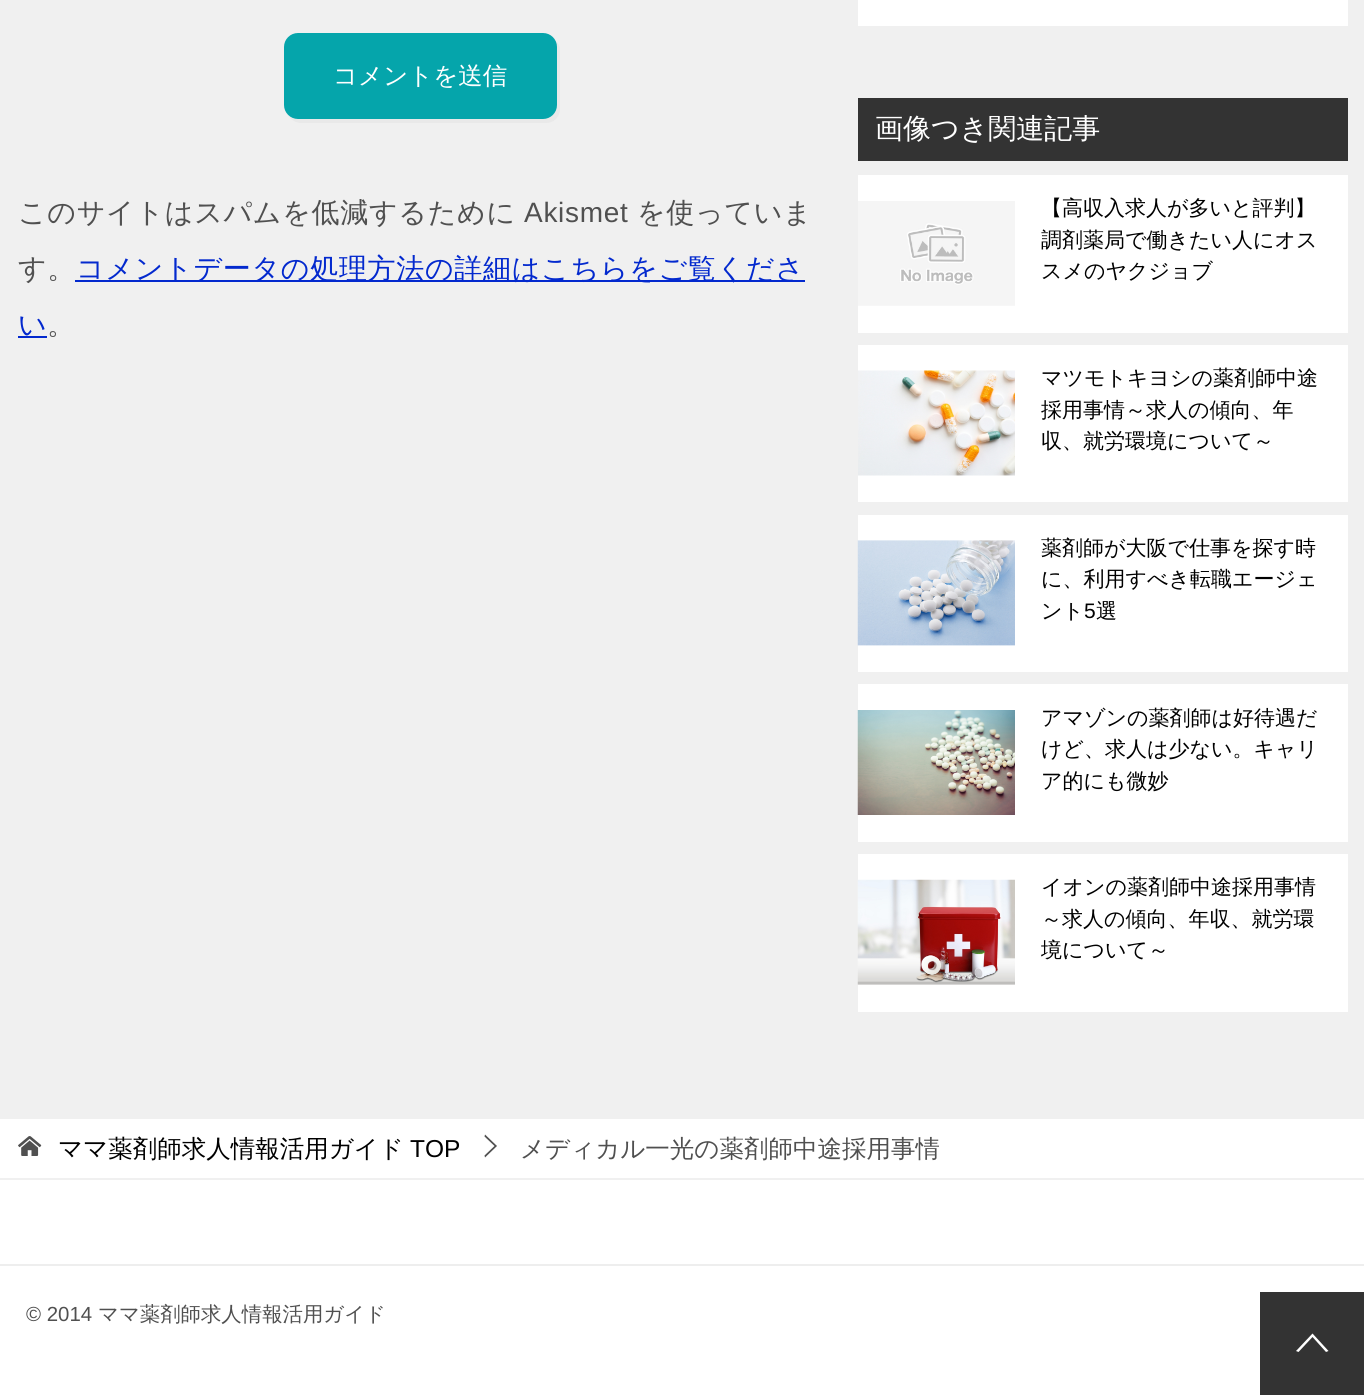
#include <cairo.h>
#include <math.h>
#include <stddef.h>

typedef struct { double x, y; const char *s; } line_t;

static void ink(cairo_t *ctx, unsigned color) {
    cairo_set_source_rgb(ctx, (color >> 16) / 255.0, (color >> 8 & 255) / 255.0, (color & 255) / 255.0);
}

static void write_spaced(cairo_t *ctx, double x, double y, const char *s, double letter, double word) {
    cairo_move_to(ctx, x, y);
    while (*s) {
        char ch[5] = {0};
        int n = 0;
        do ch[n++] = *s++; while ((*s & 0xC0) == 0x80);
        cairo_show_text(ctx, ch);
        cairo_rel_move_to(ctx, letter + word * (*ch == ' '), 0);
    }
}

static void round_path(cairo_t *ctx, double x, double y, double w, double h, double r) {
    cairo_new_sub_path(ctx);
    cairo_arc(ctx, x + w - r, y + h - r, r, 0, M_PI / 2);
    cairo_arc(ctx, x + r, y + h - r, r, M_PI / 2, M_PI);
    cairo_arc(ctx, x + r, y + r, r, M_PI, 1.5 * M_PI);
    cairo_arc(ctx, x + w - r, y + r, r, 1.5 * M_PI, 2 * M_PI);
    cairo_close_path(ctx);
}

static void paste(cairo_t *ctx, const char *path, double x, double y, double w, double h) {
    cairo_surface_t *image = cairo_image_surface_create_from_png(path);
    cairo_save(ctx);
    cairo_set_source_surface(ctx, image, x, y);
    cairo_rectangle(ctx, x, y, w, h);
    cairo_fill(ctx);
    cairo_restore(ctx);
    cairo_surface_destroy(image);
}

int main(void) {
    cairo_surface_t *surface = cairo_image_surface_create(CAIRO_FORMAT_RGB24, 1364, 1395);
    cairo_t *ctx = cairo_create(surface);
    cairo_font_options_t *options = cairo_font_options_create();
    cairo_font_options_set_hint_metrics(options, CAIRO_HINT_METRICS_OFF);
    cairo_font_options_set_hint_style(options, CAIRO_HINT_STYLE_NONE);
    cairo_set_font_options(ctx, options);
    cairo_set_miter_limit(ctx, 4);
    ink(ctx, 0xF0F0F0);
    cairo_paint(ctx);
    ink(ctx, 0xE9E9E9);
    cairo_new_path(ctx);
    cairo_move_to(ctx, 289, 116);
    cairo_curve_to(ctx, 291, 120, 296, 123, 301, 123);
    cairo_line_to(ctx, 546, 123);
    cairo_curve_to(ctx, 554, 123, 560, 117, 560, 109);
    cairo_line_to(ctx, 560, 51);
    cairo_curve_to(ctx, 560, 46, 558, 42, 554, 40);
    cairo_curve_to(ctx, 556, 42, 556, 44, 556, 47);
    cairo_line_to(ctx, 556, 105);
    cairo_curve_to(ctx, 556, 113, 550, 119, 542, 119);
    cairo_line_to(ctx, 298, 119);
    cairo_curve_to(ctx, 294, 119, 291, 118, 289, 116);
    cairo_close_path(ctx);
    cairo_fill(ctx);
    ink(ctx, 0x05A5AB);
    round_path(ctx, 284, 33, 273, 86, 14);
    cairo_fill(ctx);
    cairo_select_font_face(ctx, "WenQuanYi Zen Hei Medium", CAIRO_FONT_SLANT_NORMAL, CAIRO_FONT_WEIGHT_NORMAL);
    cairo_set_font_size(ctx, 24.5);
    ink(ctx, 0xFFFFFF);
    cairo_move_to(ctx, 333, 84);
    cairo_show_text(ctx, "コメントを送信");
    cairo_set_font_size(ctx, 28);
    ink(ctx, 0x505050);
    write_spaced(ctx, 18, 222, "このサイトはスパムを低減するために", 0.7, 0);
    cairo_select_font_face(ctx, "Liberation Sans", CAIRO_FONT_SLANT_NORMAL, CAIRO_FONT_WEIGHT_NORMAL);
    write_spaced(ctx, 524, 222, "Akismet", 0.7, 0);
    cairo_select_font_face(ctx, "WenQuanYi Zen Hei Medium", CAIRO_FONT_SLANT_NORMAL, CAIRO_FONT_WEIGHT_NORMAL);
    write_spaced(ctx, 637, 222, "を使っていま", 0.7, 0);
    write_spaced(ctx, 18, 278, "す。", 0.7, 0);
    ink(ctx, 0x0329CE);
    cairo_rectangle(ctx, 75, 280, 730, 2);
    cairo_fill(ctx);
    write_spaced(ctx, 76, 278, "コメントデータの処理方法の詳細はこちらをご覧くださ", 0.7, 0);
    write_spaced(ctx, 18, 334, "い", 0.7, 0);
    cairo_rectangle(ctx, 18, 336, 29, 2);
    cairo_fill(ctx);
    ink(ctx, 0x505050);
    write_spaced(ctx, 47, 334, "。", 0.7, 0);
    ink(ctx, 0xFFFFFF);
    cairo_rectangle(ctx, 858, 0, 490, 26);
    cairo_fill(ctx);
    ink(ctx, 0x333333);
    cairo_rectangle(ctx, 858, 98, 490, 63);
    cairo_fill(ctx);
    ink(ctx, 0xFFFFFF);
    cairo_move_to(ctx, 875, 138);
    cairo_show_text(ctx, "画像つき関連記事");
    cairo_rectangle(ctx, 858, 175, 490, 158);
    cairo_fill(ctx);
    paste(ctx, "media/1.png", 858, 201, 157, 105);
    cairo_set_font_size(ctx, 21);
    ink(ctx, 0x000000);
    {
        static const line_t items[] = {
            {1041, 215, "【高収入求人が多いと評判】"},
            {1041, 247, "調剤薬局で働きたい人にオス"},
            {1041, 278, "スメのヤクジョブ"},
        };
        for (size_t i = 0; i < sizeof items / sizeof *items; i++) {
            cairo_move_to(ctx, items[i].x, items[i].y);
            cairo_show_text(ctx, items[i].s);
        }
    }
    ink(ctx, 0xFFFFFF);
    cairo_rectangle(ctx, 858, 345, 490, 157);
    cairo_fill(ctx);
    paste(ctx, "media/2.png", 858, 370, 157, 106);
    ink(ctx, 0x000000);
    {
        static const line_t items[] = {
            {1041, 385, "マツモトキヨシの薬剤師中途"},
            {1041, 417, "採用事情～求人の傾向、年"},
            {1041, 448, "収、就労環境について～"},
        };
        for (size_t i = 0; i < sizeof items / sizeof *items; i++) {
            cairo_move_to(ctx, items[i].x, items[i].y);
            cairo_show_text(ctx, items[i].s);
        }
    }
    ink(ctx, 0xFFFFFF);
    cairo_rectangle(ctx, 858, 515, 490, 157);
    cairo_fill(ctx);
    paste(ctx, "media/3.png", 857, 540, 158, 106);
    ink(ctx, 0x000000);
    {
        static const line_t items[] = {
            {1041, 555, "薬剤師が大阪で仕事を探す時"},
            {1041, 586, "に、利用すべき転職エージェ"},
            {1041, 618, "ント"},
        };
        for (size_t i = 0; i < sizeof items / sizeof *items; i++) {
            cairo_move_to(ctx, items[i].x, items[i].y);
            cairo_show_text(ctx, items[i].s);
        }
    }
    cairo_select_font_face(ctx, "Liberation Sans", CAIRO_FONT_SLANT_NORMAL, CAIRO_FONT_WEIGHT_NORMAL);
    cairo_move_to(ctx, 1084, 618);
    cairo_show_text(ctx, "5");
    cairo_select_font_face(ctx, "WenQuanYi Zen Hei Medium", CAIRO_FONT_SLANT_NORMAL, CAIRO_FONT_WEIGHT_NORMAL);
    cairo_move_to(ctx, 1096, 618);
    cairo_show_text(ctx, "選");
    ink(ctx, 0xFFFFFF);
    cairo_rectangle(ctx, 858, 684, 490, 158);
    cairo_fill(ctx);
    paste(ctx, "media/4.png", 857, 710, 158, 105);
    ink(ctx, 0x000000);
    {
        static const line_t items[] = {
            {1041, 725, "アマゾンの薬剤師は好待遇だ"},
            {1041, 756, "けど、求人は少ない。キャリ"},
            {1041, 788, "ア的にも微妙"},
        };
        for (size_t i = 0; i < sizeof items / sizeof *items; i++) {
            cairo_move_to(ctx, items[i].x, items[i].y);
            cairo_show_text(ctx, items[i].s);
        }
    }
    ink(ctx, 0xFFFFFF);
    cairo_rectangle(ctx, 858, 854, 490, 158);
    cairo_fill(ctx);
    paste(ctx, "media/5.png", 857, 879, 158, 106);
    ink(ctx, 0x000000);
    {
        static const line_t items[] = {
            {1041, 894, "イオンの薬剤師中途採用事情"},
            {1041, 926, "～求人の傾向、年収、就労環"},
            {1041, 957, "境について～"},
        };
        for (size_t i = 0; i < sizeof items / sizeof *items; i++) {
            cairo_move_to(ctx, items[i].x, items[i].y);
            cairo_show_text(ctx, items[i].s);
        }
    }
    ink(ctx, 0xFFFFFF);
    cairo_rectangle(ctx, 0, 1119, 1364, 59);
    cairo_fill(ctx);
    paste(ctx, "media/6.png", 18, 1136, 24, 20);
    cairo_set_font_size(ctx, 24.5);
    ink(ctx, 0x000000);
    cairo_move_to(ctx, 58, 1157);
    cairo_show_text(ctx, "ママ薬剤師求人情報活用ガイド");
    cairo_select_font_face(ctx, "Liberation Sans", CAIRO_FONT_SLANT_NORMAL, CAIRO_FONT_WEIGHT_NORMAL);
    cairo_move_to(ctx, 410, 1157);
    cairo_show_text(ctx, "TOP");
    ink(ctx, 0x505050);
    cairo_new_path(ctx);
    cairo_move_to(ctx, 485, 1157.5);
    cairo_line_to(ctx, 484.5, 1155.5);
    cairo_line_to(ctx, 494.5, 1146);
    cairo_line_to(ctx, 484.5, 1136.5);
    cairo_line_to(ctx, 485, 1134.5);
    cairo_line_to(ctx, 497, 1146);
    cairo_close_path(ctx);
    cairo_fill(ctx);
    cairo_select_font_face(ctx, "WenQuanYi Zen Hei Medium", CAIRO_FONT_SLANT_NORMAL, CAIRO_FONT_WEIGHT_NORMAL);
    cairo_move_to(ctx, 520, 1157);
    cairo_show_text(ctx, "メディカル一光の薬剤師中途採用事情");
    ink(ctx, 0xFFFFFF);
    cairo_rectangle(ctx, 0, 1180, 1364, 215);
    cairo_fill(ctx);
    ink(ctx, 0xEEEEEE);
    cairo_rectangle(ctx, 0, 1264, 1364, 2);
    cairo_fill(ctx);
    cairo_select_font_face(ctx, "Liberation Sans", CAIRO_FONT_SLANT_NORMAL, CAIRO_FONT_WEIGHT_NORMAL);
    cairo_set_font_size(ctx, 20.4);
    ink(ctx, 0x505050);
    cairo_move_to(ctx, 26, 1321);
    cairo_show_text(ctx, "© 2014");
    cairo_select_font_face(ctx, "WenQuanYi Zen Hei Medium", CAIRO_FONT_SLANT_NORMAL, CAIRO_FONT_WEIGHT_NORMAL);
    cairo_move_to(ctx, 98, 1321);
    cairo_show_text(ctx, "ママ薬剤師求人情報活用ガイド");
    ink(ctx, 0x333333);
    cairo_rectangle(ctx, 1260, 1292, 104, 103);
    cairo_fill(ctx);
    ink(ctx, 0xFFFFFF);
    cairo_new_path(ctx);
    cairo_move_to(ctx, 1312.5, 1333.5);
    cairo_line_to(ctx, 1328.5, 1351);
    cairo_line_to(ctx, 1326, 1352);
    cairo_line_to(ctx, 1312.5, 1337);
    cairo_line_to(ctx, 1298.5, 1352);
    cairo_line_to(ctx, 1296, 1351);
    cairo_close_path(ctx);
    cairo_fill(ctx);
    cairo_surface_write_to_png(surface, "image.png");
    cairo_font_options_destroy(options);
    cairo_destroy(ctx);
    cairo_surface_destroy(surface);
    return 0;
}
